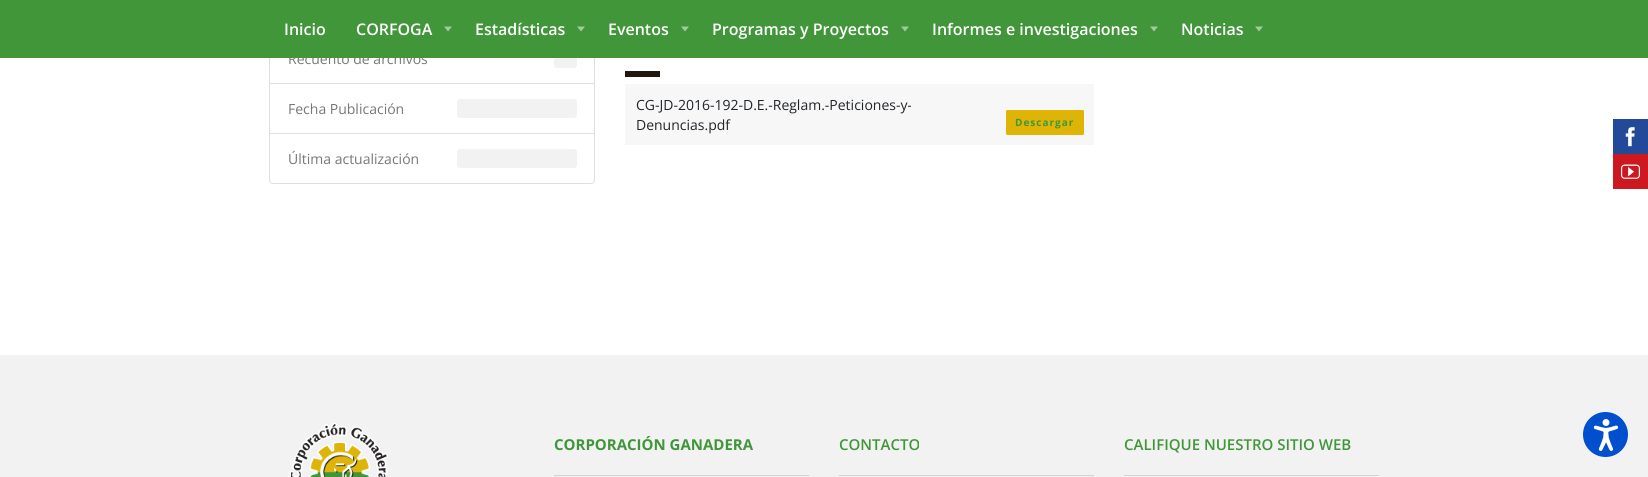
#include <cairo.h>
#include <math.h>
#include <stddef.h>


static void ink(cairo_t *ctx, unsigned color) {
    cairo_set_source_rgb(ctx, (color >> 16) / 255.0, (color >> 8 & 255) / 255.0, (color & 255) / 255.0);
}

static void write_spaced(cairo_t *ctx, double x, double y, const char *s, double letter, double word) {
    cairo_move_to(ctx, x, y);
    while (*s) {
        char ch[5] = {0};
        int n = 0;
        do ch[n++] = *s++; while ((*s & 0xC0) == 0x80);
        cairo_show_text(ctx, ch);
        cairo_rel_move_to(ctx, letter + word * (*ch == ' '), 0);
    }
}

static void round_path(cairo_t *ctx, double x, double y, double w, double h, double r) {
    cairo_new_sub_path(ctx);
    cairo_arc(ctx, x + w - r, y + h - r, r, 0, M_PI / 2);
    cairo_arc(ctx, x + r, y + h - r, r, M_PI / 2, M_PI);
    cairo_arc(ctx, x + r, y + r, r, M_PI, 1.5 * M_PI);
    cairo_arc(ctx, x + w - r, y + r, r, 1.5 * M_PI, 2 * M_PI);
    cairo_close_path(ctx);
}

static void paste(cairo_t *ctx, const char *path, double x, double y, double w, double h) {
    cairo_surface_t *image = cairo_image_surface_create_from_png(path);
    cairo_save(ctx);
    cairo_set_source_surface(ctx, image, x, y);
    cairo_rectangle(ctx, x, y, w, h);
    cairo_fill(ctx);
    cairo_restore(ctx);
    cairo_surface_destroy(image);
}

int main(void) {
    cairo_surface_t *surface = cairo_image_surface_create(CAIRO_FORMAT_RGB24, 1648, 477);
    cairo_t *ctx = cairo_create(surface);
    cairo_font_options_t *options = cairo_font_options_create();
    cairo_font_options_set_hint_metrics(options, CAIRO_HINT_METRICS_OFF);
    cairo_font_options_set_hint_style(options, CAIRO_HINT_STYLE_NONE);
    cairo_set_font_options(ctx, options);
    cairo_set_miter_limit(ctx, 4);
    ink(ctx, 0xF2F2F2);
    cairo_paint(ctx);
    ink(ctx, 0xFFFFFF);
    cairo_rectangle(ctx, 0, 58, 1648, 297);
    cairo_fill(ctx);
    cairo_rectangle(ctx, 269.5, 33.5, 325, 50);
    ink(ctx, 0xDFDFDF);
    cairo_set_line_width(ctx, 1);
    cairo_stroke(ctx);
    cairo_select_font_face(ctx, "Open Sans", CAIRO_FONT_SLANT_NORMAL, CAIRO_FONT_WEIGHT_NORMAL);
    cairo_set_font_size(ctx, 14);
    ink(ctx, 0x777777);
    cairo_move_to(ctx, 288, 64);
    cairo_show_text(ctx, "Recuento de archivos");
    ink(ctx, 0xF2F2F2);
    round_path(ctx, 554, 49, 23, 19, 3);
    cairo_fill(ctx);
    ink(ctx, 0x419639);
    cairo_rectangle(ctx, 0, 0, 1648, 58);
    cairo_fill(ctx);
    cairo_select_font_face(ctx, "Open Sans SemiBold", CAIRO_FONT_SLANT_NORMAL, CAIRO_FONT_WEIGHT_NORMAL);
    cairo_set_font_size(ctx, 16);
    ink(ctx, 0xFFFFFF);
    cairo_move_to(ctx, 284, 35);
    cairo_show_text(ctx, "Inicio");
    cairo_move_to(ctx, 356, 35);
    cairo_show_text(ctx, "CORFOGA");
    ink(ctx, 0xA0CB9C);
    cairo_new_path(ctx);
    cairo_move_to(ctx, 444, 26.5);
    cairo_line_to(ctx, 452, 26.5);
    cairo_line_to(ctx, 448, 31.5);
    cairo_close_path(ctx);
    cairo_fill(ctx);
    ink(ctx, 0xFFFFFF);
    cairo_move_to(ctx, 475, 35);
    cairo_show_text(ctx, "Estadísticas");
    ink(ctx, 0xA0CB9C);
    cairo_new_path(ctx);
    cairo_move_to(ctx, 577, 26.5);
    cairo_line_to(ctx, 585, 26.5);
    cairo_line_to(ctx, 581, 31.5);
    cairo_close_path(ctx);
    cairo_fill(ctx);
    ink(ctx, 0xFFFFFF);
    cairo_move_to(ctx, 608, 35);
    cairo_show_text(ctx, "Eventos");
    ink(ctx, 0xA0CB9C);
    cairo_new_path(ctx);
    cairo_move_to(ctx, 681, 26.5);
    cairo_line_to(ctx, 689, 26.5);
    cairo_line_to(ctx, 685, 31.5);
    cairo_close_path(ctx);
    cairo_fill(ctx);
    ink(ctx, 0xFFFFFF);
    cairo_move_to(ctx, 712, 35);
    cairo_show_text(ctx, "Programas y Proyectos");
    ink(ctx, 0xA0CB9C);
    cairo_new_path(ctx);
    cairo_move_to(ctx, 901, 26.5);
    cairo_line_to(ctx, 909, 26.5);
    cairo_line_to(ctx, 905, 31.5);
    cairo_close_path(ctx);
    cairo_fill(ctx);
    ink(ctx, 0xFFFFFF);
    cairo_move_to(ctx, 932, 35);
    cairo_show_text(ctx, "Informes e investigaciones");
    ink(ctx, 0xA0CB9C);
    cairo_new_path(ctx);
    cairo_move_to(ctx, 1150, 26.5);
    cairo_line_to(ctx, 1158, 26.5);
    cairo_line_to(ctx, 1154, 31.5);
    cairo_close_path(ctx);
    cairo_fill(ctx);
    ink(ctx, 0xFFFFFF);
    cairo_move_to(ctx, 1181, 35);
    cairo_show_text(ctx, "Noticias");
    ink(ctx, 0xA0CB9C);
    cairo_new_path(ctx);
    cairo_move_to(ctx, 1255, 26.5);
    cairo_line_to(ctx, 1263, 26.5);
    cairo_line_to(ctx, 1259, 31.5);
    cairo_close_path(ctx);
    cairo_fill(ctx);
    cairo_rectangle(ctx, 269.5, 83.5, 325, 50);
    ink(ctx, 0xDFDFDF);
    cairo_stroke(ctx);
    cairo_select_font_face(ctx, "Open Sans", CAIRO_FONT_SLANT_NORMAL, CAIRO_FONT_WEIGHT_NORMAL);
    cairo_set_font_size(ctx, 14);
    ink(ctx, 0x777777);
    cairo_move_to(ctx, 288, 114);
    cairo_show_text(ctx, "Fecha Publicación");
    ink(ctx, 0xF2F2F2);
    round_path(ctx, 457, 99, 120, 19, 3);
    cairo_fill(ctx);
    ink(ctx, 0xFFFFFF);
    cairo_new_path(ctx);
    cairo_move_to(ctx, 269.5, 133.5);
    cairo_line_to(ctx, 594.5, 133.5);
    cairo_line_to(ctx, 594.5, 180);
    cairo_curve_to(ctx, 594.5, 182, 593, 183.5, 591, 183.5);
    cairo_line_to(ctx, 273, 183.5);
    cairo_curve_to(ctx, 271, 183.5, 269.5, 182, 269.5, 180);
    cairo_close_path(ctx);
    cairo_fill_preserve(ctx);
    ink(ctx, 0xDFDFDF);
    cairo_stroke(ctx);
    ink(ctx, 0x777777);
    cairo_move_to(ctx, 288, 164);
    cairo_show_text(ctx, "Última actualización");
    ink(ctx, 0xF2F2F2);
    round_path(ctx, 457, 149, 120, 19, 3);
    cairo_fill(ctx);
    ink(ctx, 0x221811);
    cairo_rectangle(ctx, 625, 71, 35, 6);
    cairo_fill(ctx);
    ink(ctx, 0xF7F7F7);
    cairo_rectangle(ctx, 625, 84, 469, 61);
    cairo_fill(ctx);
    ink(ctx, 0x212529);
    cairo_move_to(ctx, 636, 110);
    cairo_show_text(ctx, "CG-JD-2016-192-D.E.-Reglam.-Peticiones-y-");
    cairo_move_to(ctx, 636, 130);
    cairo_show_text(ctx, "Denuncias.pdf");
    ink(ctx, 0xDEB406);
    round_path(ctx, 1006.5, 110.5, 77, 24, 1);
    cairo_fill_preserve(ctx);
    cairo_stroke(ctx);
    cairo_select_font_face(ctx, "Open Sans", CAIRO_FONT_SLANT_NORMAL, CAIRO_FONT_WEIGHT_BOLD);
    cairo_set_font_size(ctx, 10);
    ink(ctx, 0x419639);
    write_spaced(ctx, 1015, 126, "Descargar", 1, 0);
    paste(ctx, "media/1.png", 289, 423, 99, 54);
    ink(ctx, 0xD2D2D2);
    cairo_rectangle(ctx, 554, 475, 255, 1);
    cairo_fill(ctx);
    cairo_set_font_size(ctx, 15);
    ink(ctx, 0x419639);
    cairo_move_to(ctx, 554, 450);
    cairo_show_text(ctx, "CORPORACIÓN GANADERA");
    ink(ctx, 0xD2D2D2);
    cairo_rectangle(ctx, 839, 475, 255, 1);
    cairo_fill(ctx);
    cairo_select_font_face(ctx, "Open Sans SemiBold", CAIRO_FONT_SLANT_NORMAL, CAIRO_FONT_WEIGHT_NORMAL);
    ink(ctx, 0x419639);
    cairo_move_to(ctx, 839, 450);
    cairo_show_text(ctx, "CONTACTO");
    ink(ctx, 0xD2D2D2);
    cairo_rectangle(ctx, 1124, 475, 255, 1);
    cairo_fill(ctx);
    ink(ctx, 0x419639);
    cairo_move_to(ctx, 1124, 450);
    cairo_show_text(ctx, "CALIFIQUE NUESTRO SITIO WEB");
    ink(ctx, 0x234999);
    cairo_rectangle(ctx, 1613, 119, 35, 35);
    cairo_fill(ctx);
    paste(ctx, "media/2.png", 1625, 127, 10, 20);
    ink(ctx, 0xCD181F);
    cairo_rectangle(ctx, 1613, 154, 35, 35);
    cairo_fill(ctx);
    paste(ctx, "media/3.png", 1621, 164, 19, 15);
    ink(ctx, 0x004FCE);
    cairo_arc(ctx, 1605.5, 434.5, 22.5, 0, 2 * M_PI);
    cairo_fill(ctx);
    paste(ctx, "media/4.png", 1593, 419, 26, 32);
    cairo_surface_write_to_png(surface, "image.png");
    cairo_font_options_destroy(options);
    cairo_destroy(ctx);
    cairo_surface_destroy(surface);
    return 0;
}
